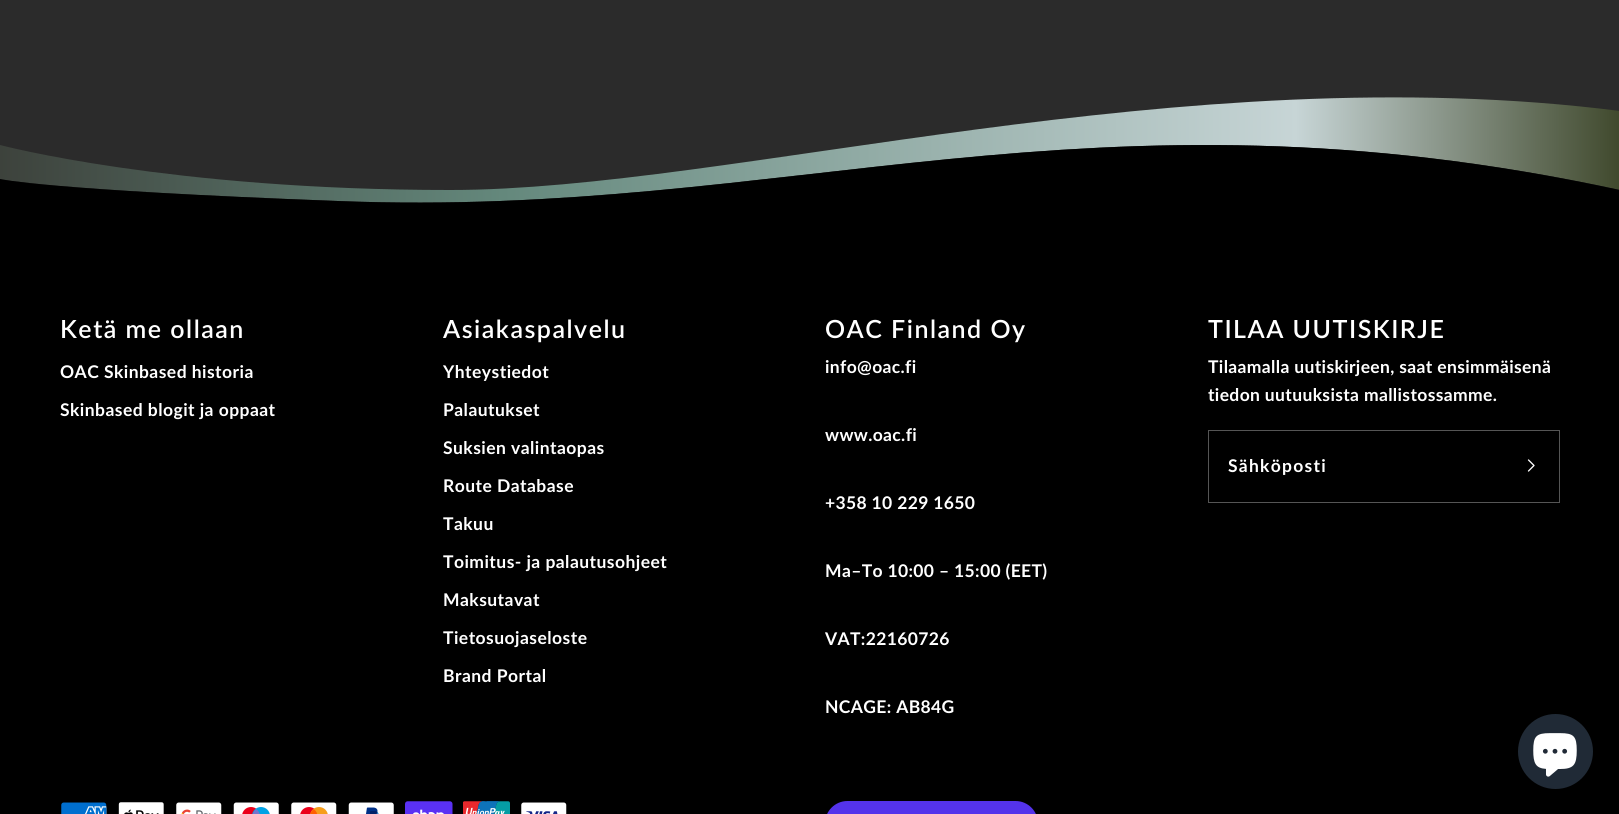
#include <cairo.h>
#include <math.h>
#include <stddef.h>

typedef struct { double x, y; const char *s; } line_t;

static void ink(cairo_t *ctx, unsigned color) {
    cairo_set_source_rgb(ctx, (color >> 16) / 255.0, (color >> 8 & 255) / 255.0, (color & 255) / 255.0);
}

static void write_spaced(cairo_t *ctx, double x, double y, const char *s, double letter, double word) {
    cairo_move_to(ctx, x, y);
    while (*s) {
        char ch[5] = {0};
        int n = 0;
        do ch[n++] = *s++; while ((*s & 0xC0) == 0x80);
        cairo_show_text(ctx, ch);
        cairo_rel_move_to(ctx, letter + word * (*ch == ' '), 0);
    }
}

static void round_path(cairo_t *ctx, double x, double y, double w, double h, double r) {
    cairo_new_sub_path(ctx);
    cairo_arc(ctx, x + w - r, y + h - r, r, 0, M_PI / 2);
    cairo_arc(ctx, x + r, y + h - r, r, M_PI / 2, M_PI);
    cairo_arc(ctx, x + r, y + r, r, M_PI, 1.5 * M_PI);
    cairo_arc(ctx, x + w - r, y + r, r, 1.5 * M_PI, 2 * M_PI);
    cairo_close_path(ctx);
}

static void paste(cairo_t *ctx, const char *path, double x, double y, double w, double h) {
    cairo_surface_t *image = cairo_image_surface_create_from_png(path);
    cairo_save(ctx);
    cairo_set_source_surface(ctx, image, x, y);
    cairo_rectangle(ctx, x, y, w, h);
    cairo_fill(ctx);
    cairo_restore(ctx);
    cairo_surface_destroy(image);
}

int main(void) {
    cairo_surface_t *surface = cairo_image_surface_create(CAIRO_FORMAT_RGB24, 1619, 814);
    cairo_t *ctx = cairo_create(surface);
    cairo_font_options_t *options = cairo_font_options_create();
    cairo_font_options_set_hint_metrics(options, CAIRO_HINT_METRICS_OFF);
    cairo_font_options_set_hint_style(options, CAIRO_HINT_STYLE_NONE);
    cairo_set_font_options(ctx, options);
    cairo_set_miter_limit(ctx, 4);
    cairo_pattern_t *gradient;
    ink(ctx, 0x2B2B2B);
    cairo_paint(ctx);
    gradient = cairo_pattern_create_linear(0, 98, 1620, 98);
    cairo_pattern_add_color_stop_rgba(gradient, 0, 0.239, 0.259, 0.235, 1);
    cairo_pattern_add_color_stop_rgba(gradient, 0.31, 0.392, 0.533, 0.486, 1);
    cairo_pattern_add_color_stop_rgba(gradient, 0.8, 0.78, 0.835, 0.839, 1);
    cairo_pattern_add_color_stop_rgba(gradient, 1, 0.251, 0.286, 0.176, 1);
    cairo_set_source(ctx, gradient);
    cairo_pattern_destroy(gradient);
    cairo_new_path(ctx);
    cairo_move_to(ctx, 0, 145);
    cairo_curve_to(ctx, 0, 145, 169, 190, 450, 190);
    cairo_curve_to(ctx, 731, 190, 1181, 55, 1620, 111);
    cairo_line_to(ctx, 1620, 190);
    cairo_curve_to(ctx, 1088, 75, 788, 219, 338, 201);
    cairo_curve_to(ctx, 45, 190, 0, 179, 0, 179);
    cairo_close_path(ctx);
    cairo_fill(ctx);
    ink(ctx, 0x000000);
    cairo_new_path(ctx);
    cairo_move_to(ctx, 338, 201);
    cairo_curve_to(ctx, 45, 190, 0, 179, 0, 179);
    cairo_line_to(ctx, 0, 224);
    cairo_line_to(ctx, 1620, 224);
    cairo_line_to(ctx, 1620, 190);
    cairo_curve_to(ctx, 1088, 75, 788, 219, 338, 201);
    cairo_close_path(ctx);
    cairo_fill(ctx);
    cairo_rectangle(ctx, 0, 224, 1619, 590);
    cairo_fill(ctx);
    cairo_select_font_face(ctx, "Lato SemiBold", CAIRO_FONT_SLANT_NORMAL, CAIRO_FONT_WEIGHT_NORMAL);
    cairo_set_font_size(ctx, 25);
    ink(ctx, 0xFFFFFF);
    write_spaced(ctx, 60, 338, "Ketä me ollaan", 1.5, 0);
    cairo_select_font_face(ctx, "Lato", CAIRO_FONT_SLANT_NORMAL, CAIRO_FONT_WEIGHT_BOLD);
    cairo_set_font_size(ctx, 17.5);
    write_spaced(ctx, 60, 378, "OAC Skinbased historia", 0.45, 0);
    write_spaced(ctx, 60, 416, "Skinbased blogit ja oppaat", 0.45, 0);
    cairo_select_font_face(ctx, "Lato SemiBold", CAIRO_FONT_SLANT_NORMAL, CAIRO_FONT_WEIGHT_NORMAL);
    cairo_set_font_size(ctx, 25);
    write_spaced(ctx, 443, 338, "Asiakaspalvelu", 1.5, 0);
    cairo_select_font_face(ctx, "Lato", CAIRO_FONT_SLANT_NORMAL, CAIRO_FONT_WEIGHT_BOLD);
    cairo_set_font_size(ctx, 17.5);
    {
        static const line_t items[] = {
            {443, 378, "Yhteystiedot"},
            {443, 416, "Palautukset"},
            {443, 454, "Suksien valintaopas"},
            {443, 492, "Route Database"},
        };
        for (size_t i = 0; i < sizeof items / sizeof *items; i++) {
            write_spaced(ctx, items[i].x, items[i].y, items[i].s, 0.45, 0);
        }
    }
    cairo_save(ctx);
    cairo_rectangle(ctx, 443, 304, 352, 417);
    cairo_clip(ctx);
    write_spaced(ctx, 443, 530, "Takuu", 0.45, 0);
    write_spaced(ctx, 443, 568, "Toimitus- ja palautusohjeet", 0.45, 0);
    cairo_restore(ctx);
    write_spaced(ctx, 443, 606, "Maksutavat", 0.45, 0);
    cairo_save(ctx);
    cairo_rectangle(ctx, 443, 304, 352, 417);
    cairo_clip(ctx);
    write_spaced(ctx, 443, 644, "Tietosuojaseloste", 0.45, 0);
    cairo_restore(ctx);
    write_spaced(ctx, 443, 682, "Brand Portal", 0.45, 0);
    cairo_select_font_face(ctx, "Lato SemiBold", CAIRO_FONT_SLANT_NORMAL, CAIRO_FONT_WEIGHT_NORMAL);
    cairo_set_font_size(ctx, 25);
    write_spaced(ctx, 825, 338, "OAC Finland Oy", 1.5, 0);
    cairo_select_font_face(ctx, "Lato", CAIRO_FONT_SLANT_NORMAL, CAIRO_FONT_WEIGHT_BOLD);
    cairo_set_font_size(ctx, 17.5);
    {
        static const line_t items[] = {
            {825, 373, "info@oac.fi"},
            {825, 441, "www.oac.fi"},
            {825, 509, "+358 10 229 1650"},
            {825, 577, "Ma–To 10:00 – 15:00 (EET)"},
            {825, 645, "VAT:22160726"},
            {825, 713, "NCAGE: AB84G"},
        };
        for (size_t i = 0; i < sizeof items / sizeof *items; i++) {
            write_spaced(ctx, items[i].x, items[i].y, items[i].s, 0.35, 0);
        }
    }
    cairo_select_font_face(ctx, "Lato SemiBold", CAIRO_FONT_SLANT_NORMAL, CAIRO_FONT_WEIGHT_NORMAL);
    cairo_set_font_size(ctx, 25);
    write_spaced(ctx, 1208, 338, "TILAA UUTISKIRJE", 1.5, 0);
    cairo_save(ctx);
    cairo_rectangle(ctx, 1208, 304, 352, 417);
    cairo_clip(ctx);
    cairo_select_font_face(ctx, "Lato", CAIRO_FONT_SLANT_NORMAL, CAIRO_FONT_WEIGHT_BOLD);
    cairo_set_font_size(ctx, 17.5);
    write_spaced(ctx, 1208, 373, "Tilaamalla uutiskirjeen, saat ensimmäisenä", 0.35, 0);
    cairo_restore(ctx);
    cairo_select_font_face(ctx, "Lato", CAIRO_FONT_SLANT_NORMAL, CAIRO_FONT_WEIGHT_BOLD);
    cairo_set_font_size(ctx, 17.5);
    write_spaced(ctx, 1208, 401, "tiedon uutuuksista mallistossamme.", 0.35, 0);
    cairo_rectangle(ctx, 1208.5, 430.5, 351, 72);
    ink(ctx, 0x555555);
    cairo_set_line_width(ctx, 1);
    cairo_stroke(ctx);
    ink(ctx, 0xFFFFFF);
    write_spaced(ctx, 1228, 472, "Sähköposti", 1.25, 0);
    cairo_new_path(ctx);
    cairo_move_to(ctx, 1528.5, 471);
    cairo_line_to(ctx, 1534, 465.5);
    cairo_line_to(ctx, 1528.5, 460);
    cairo_set_line_width(ctx, 1.3);
    cairo_set_line_cap(ctx, CAIRO_LINE_CAP_ROUND);
    cairo_set_line_join(ctx, CAIRO_LINE_JOIN_ROUND);
    cairo_stroke(ctx);
    paste(ctx, "media/1.png", 61, 802, 46, 12);
    paste(ctx, "media/2.png", 118, 802, 46, 12);
    paste(ctx, "media/3.png", 176, 802, 46, 12);
    paste(ctx, "media/4.png", 233, 802, 46, 12);
    paste(ctx, "media/5.png", 291, 802, 46, 12);
    paste(ctx, "media/6.png", 348, 802, 46, 12);
    paste(ctx, "media/7.png", 405, 801, 48, 13);
    paste(ctx, "media/8.png", 463, 801, 47, 13);
    paste(ctx, "media/9.png", 521, 802, 46, 12);
    ink(ctx, 0x5433EB);
    round_path(ctx, 825, 801, 213, 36, 22.5);
    cairo_fill(ctx);
    ink(ctx, 0x202A36);
    cairo_arc(ctx, 1555.5, 751.5, 37.5, 0, 2 * M_PI);
    cairo_fill(ctx);
    paste(ctx, "media/10.png", 1533, 733, 44, 44);
    cairo_surface_write_to_png(surface, "image.png");
    cairo_font_options_destroy(options);
    cairo_destroy(ctx);
    cairo_surface_destroy(surface);
    return 0;
}
